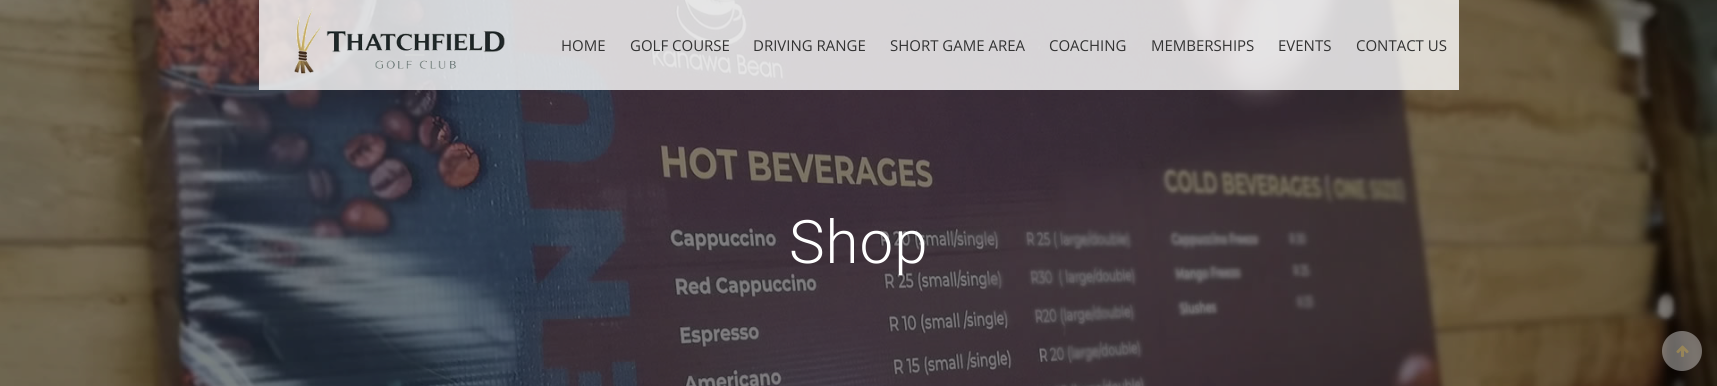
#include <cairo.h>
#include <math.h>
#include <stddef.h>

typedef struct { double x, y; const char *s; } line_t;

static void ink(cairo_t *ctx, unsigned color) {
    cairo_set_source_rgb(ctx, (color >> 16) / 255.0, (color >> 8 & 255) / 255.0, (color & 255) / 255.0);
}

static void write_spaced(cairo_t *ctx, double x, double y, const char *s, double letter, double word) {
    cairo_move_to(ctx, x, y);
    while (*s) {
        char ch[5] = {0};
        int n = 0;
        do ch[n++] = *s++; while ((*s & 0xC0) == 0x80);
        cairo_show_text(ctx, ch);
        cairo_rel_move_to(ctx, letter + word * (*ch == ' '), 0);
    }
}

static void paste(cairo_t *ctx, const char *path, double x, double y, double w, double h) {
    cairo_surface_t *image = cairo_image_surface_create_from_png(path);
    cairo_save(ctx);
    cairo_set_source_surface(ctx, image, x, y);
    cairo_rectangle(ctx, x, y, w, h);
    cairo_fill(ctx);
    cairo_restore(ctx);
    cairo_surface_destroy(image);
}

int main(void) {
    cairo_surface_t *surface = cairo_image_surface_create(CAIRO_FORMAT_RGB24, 1717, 386);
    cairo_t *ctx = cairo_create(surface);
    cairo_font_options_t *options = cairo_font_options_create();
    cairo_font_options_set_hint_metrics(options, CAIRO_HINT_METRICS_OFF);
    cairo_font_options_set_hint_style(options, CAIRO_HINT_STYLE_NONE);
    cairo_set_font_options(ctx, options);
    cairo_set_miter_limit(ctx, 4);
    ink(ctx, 0xFFFFFF);
    cairo_paint(ctx);
    paste(ctx, "media/2.png", 0, 0, 1717, 386);
    cairo_set_source_rgba(ctx, 1, 1, 1, 0.8);
    cairo_rectangle(ctx, 259, 0, 1200, 90);
    cairo_fill(ctx);
    paste(ctx, "media/1.png", 294, 7, 211, 67);
    cairo_select_font_face(ctx, "Open Sans", CAIRO_FONT_SLANT_NORMAL, CAIRO_FONT_WEIGHT_NORMAL);
    cairo_set_font_size(ctx, 15);
    ink(ctx, 0x333333);
    {
        static const line_t items[] = {
            {561, 51, "HOME"},
            {630, 51, "GOLF COURSE"},
            {753, 51, "DRIVING RANGE"},
            {890, 51, "SHORT GAME AREA"},
            {1049, 51, "COACHING"},
            {1151, 51, "MEMBERSHIPS"},
            {1278, 51, "EVENTS"},
            {1356, 51, "CONTACT US"},
        };
        for (size_t i = 0; i < sizeof items / sizeof *items; i++) {
            cairo_move_to(ctx, items[i].x, items[i].y);
            cairo_show_text(ctx, items[i].s);
        }
    }
    cairo_select_font_face(ctx, "Roboto Light", CAIRO_FONT_SLANT_NORMAL, CAIRO_FONT_WEIGHT_NORMAL);
    cairo_set_font_size(ctx, 60);
    ink(ctx, 0xFFFFFF);
    write_spaced(ctx, 789, 263, "Shop", 1, 0);
    cairo_set_source_rgba(ctx, 1, 1, 1, 0.39);
    cairo_new_path(ctx);
    cairo_arc(ctx, 1682, 351, 20, 0, 2 * M_PI);
    cairo_fill(ctx);
    paste(ctx, "media/3.png", 1676, 345, 13, 12);
    cairo_surface_write_to_png(surface, "image.png");
    cairo_font_options_destroy(options);
    cairo_destroy(ctx);
    cairo_surface_destroy(surface);
    return 0;
}
